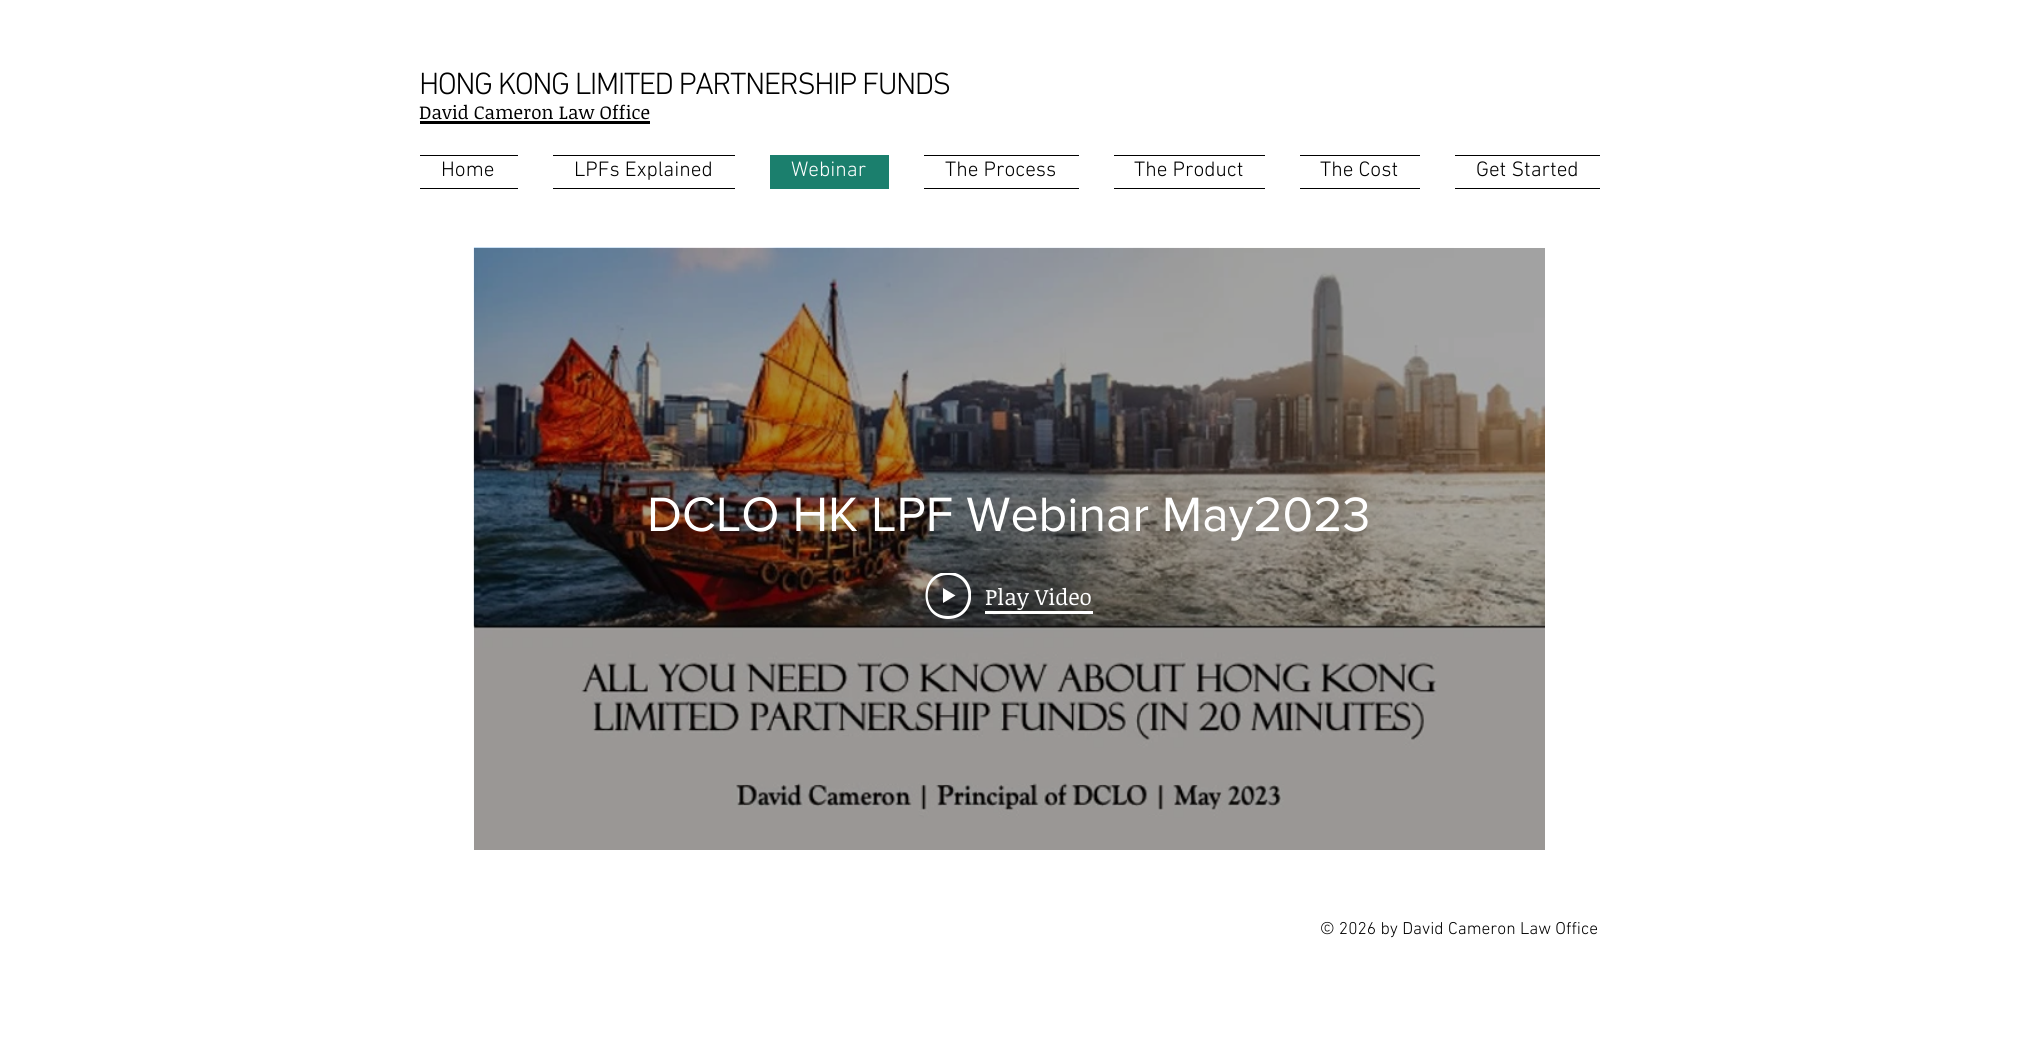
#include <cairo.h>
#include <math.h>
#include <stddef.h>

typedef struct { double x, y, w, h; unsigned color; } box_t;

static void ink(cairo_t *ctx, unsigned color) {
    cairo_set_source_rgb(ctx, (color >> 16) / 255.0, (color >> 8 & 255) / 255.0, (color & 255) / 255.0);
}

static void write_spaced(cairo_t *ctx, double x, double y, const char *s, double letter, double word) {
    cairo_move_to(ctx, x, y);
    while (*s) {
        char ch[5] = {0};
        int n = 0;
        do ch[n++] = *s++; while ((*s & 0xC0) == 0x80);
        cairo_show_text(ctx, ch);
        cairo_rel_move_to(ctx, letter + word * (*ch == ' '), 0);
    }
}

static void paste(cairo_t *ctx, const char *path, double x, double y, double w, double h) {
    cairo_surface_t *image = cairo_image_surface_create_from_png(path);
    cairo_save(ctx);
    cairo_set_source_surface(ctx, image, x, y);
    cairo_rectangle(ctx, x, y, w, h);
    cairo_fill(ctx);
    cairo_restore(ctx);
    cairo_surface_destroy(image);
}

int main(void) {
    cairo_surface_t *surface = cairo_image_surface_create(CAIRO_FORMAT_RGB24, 2018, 1045);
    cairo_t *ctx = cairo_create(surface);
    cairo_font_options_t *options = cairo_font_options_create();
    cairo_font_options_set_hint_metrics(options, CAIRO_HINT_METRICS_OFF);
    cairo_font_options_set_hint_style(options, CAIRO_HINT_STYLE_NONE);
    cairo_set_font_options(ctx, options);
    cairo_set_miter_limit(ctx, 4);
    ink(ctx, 0xFFFFFF);
    cairo_paint(ctx);
    cairo_select_font_face(ctx, "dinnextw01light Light", CAIRO_FONT_SLANT_NORMAL, CAIRO_FONT_WEIGHT_NORMAL);
    cairo_set_font_size(ctx, 31.25);
    ink(ctx, 0x000000);
    write_spaced(ctx, 419, 94, "HONG KONG LIMITED PARTNERSHIP FUNDS", -1.55, 0);
    cairo_select_font_face(ctx, "Noticia Text", CAIRO_FONT_SLANT_NORMAL, CAIRO_FONT_WEIGHT_NORMAL);
    cairo_set_font_size(ctx, 18.75);
    cairo_move_to(ctx, 419, 119);
    cairo_show_text(ctx, "David Cameron Law Office");
    {
        static const box_t items[] = {
            {420, 121, 230, 3, 0x000000},
            {420, 155, 98, 1, 0x000000},
            {420, 188, 98, 1, 0x000000},
        };
        for (size_t i = 0; i < sizeof items / sizeof *items; i++) {
            ink(ctx, items[i].color);
            cairo_rectangle(ctx, items[i].x, items[i].y, items[i].w, items[i].h);
            cairo_fill(ctx);
        }
    }
    cairo_select_font_face(ctx, "dinnextw01light Light", CAIRO_FONT_SLANT_NORMAL, CAIRO_FONT_WEIGHT_NORMAL);
    cairo_set_font_size(ctx, 21.25);
    cairo_move_to(ctx, 441, 176);
    cairo_show_text(ctx, "Home");
    cairo_rectangle(ctx, 553, 155, 182, 1);
    cairo_fill(ctx);
    cairo_rectangle(ctx, 553, 188, 182, 1);
    cairo_fill(ctx);
    cairo_move_to(ctx, 574, 176);
    cairo_show_text(ctx, "LPFs Explained");
    ink(ctx, 0x1B7F6D);
    cairo_rectangle(ctx, 770, 155, 119, 34);
    cairo_fill(ctx);
    ink(ctx, 0xFFFFFF);
    cairo_move_to(ctx, 791, 176);
    cairo_show_text(ctx, "Webinar");
    ink(ctx, 0x000000);
    cairo_rectangle(ctx, 924, 155, 155, 1);
    cairo_fill(ctx);
    cairo_rectangle(ctx, 924, 188, 155, 1);
    cairo_fill(ctx);
    cairo_move_to(ctx, 945, 176);
    cairo_show_text(ctx, "The Process");
    cairo_rectangle(ctx, 1114, 155, 151, 1);
    cairo_fill(ctx);
    cairo_rectangle(ctx, 1114, 188, 151, 1);
    cairo_fill(ctx);
    cairo_move_to(ctx, 1134, 176);
    cairo_show_text(ctx, "The Product");
    cairo_rectangle(ctx, 1300, 155, 120, 1);
    cairo_fill(ctx);
    cairo_rectangle(ctx, 1300, 188, 120, 1);
    cairo_fill(ctx);
    cairo_move_to(ctx, 1320, 176);
    cairo_show_text(ctx, "The Cost");
    cairo_rectangle(ctx, 1455, 155, 145, 1);
    cairo_fill(ctx);
    cairo_rectangle(ctx, 1455, 188, 145, 1);
    cairo_fill(ctx);
    cairo_move_to(ctx, 1476, 176);
    cairo_show_text(ctx, "Get Started");
    paste(ctx, "media/1.png", 473, 247, 1072, 603);
    paste(ctx, "media/2.png", 473, 247, 991, 564);
    cairo_select_font_face(ctx, "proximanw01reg", CAIRO_FONT_SLANT_NORMAL, CAIRO_FONT_WEIGHT_NORMAL);
    cairo_set_font_size(ctx, 50);
    ink(ctx, 0xFFFFFF);
    cairo_move_to(ctx, 647, 531);
    cairo_show_text(ctx, "DCLO HK LPF Webinar May2023");
    cairo_save(ctx);
    cairo_rectangle(ctx, 925, 573, 46, 46);
    cairo_clip(ctx);
    cairo_set_fill_rule(ctx, CAIRO_FILL_RULE_EVEN_ODD);
    cairo_new_path(ctx);
    cairo_move_to(ctx, 948, 616);
    cairo_curve_to(ctx, 975, 616, 975, 575, 948, 575);
    cairo_curve_to(ctx, 921, 575, 921, 616, 948, 616);
    cairo_close_path(ctx);
    cairo_move_to(ctx, 948, 619);
    cairo_curve_to(ctx, 918, 619, 918, 572, 948, 572);
    cairo_curve_to(ctx, 979, 572, 979, 619, 948, 619);
    cairo_close_path(ctx);
    cairo_fill(ctx);
    cairo_restore(ctx);
    cairo_set_fill_rule(ctx, CAIRO_FILL_RULE_EVEN_ODD);
    cairo_new_path(ctx);
    cairo_move_to(ctx, 955.5, 595.5);
    cairo_line_to(ctx, 943, 603);
    cairo_line_to(ctx, 943, 588);
    cairo_close_path(ctx);
    cairo_fill(ctx);
    cairo_rectangle(ctx, 985, 611, 108, 3);
    cairo_fill(ctx);
    cairo_select_font_face(ctx, "Noticia Text", CAIRO_FONT_SLANT_NORMAL, CAIRO_FONT_WEIGHT_NORMAL);
    cairo_set_font_size(ctx, 22.5);
    cairo_move_to(ctx, 985, 605);
    cairo_show_text(ctx, "Play Video");
    cairo_select_font_face(ctx, "dinnextw01light Light", CAIRO_FONT_SLANT_NORMAL, CAIRO_FONT_WEIGHT_NORMAL);
    cairo_set_font_size(ctx, 17.5);
    ink(ctx, 0x000000);
    cairo_move_to(ctx, 1320, 934);
    cairo_show_text(ctx, "© 2026 by David Cameron Law Office");
    cairo_surface_write_to_png(surface, "image.png");
    cairo_font_options_destroy(options);
    cairo_destroy(ctx);
    cairo_surface_destroy(surface);
    return 0;
}
